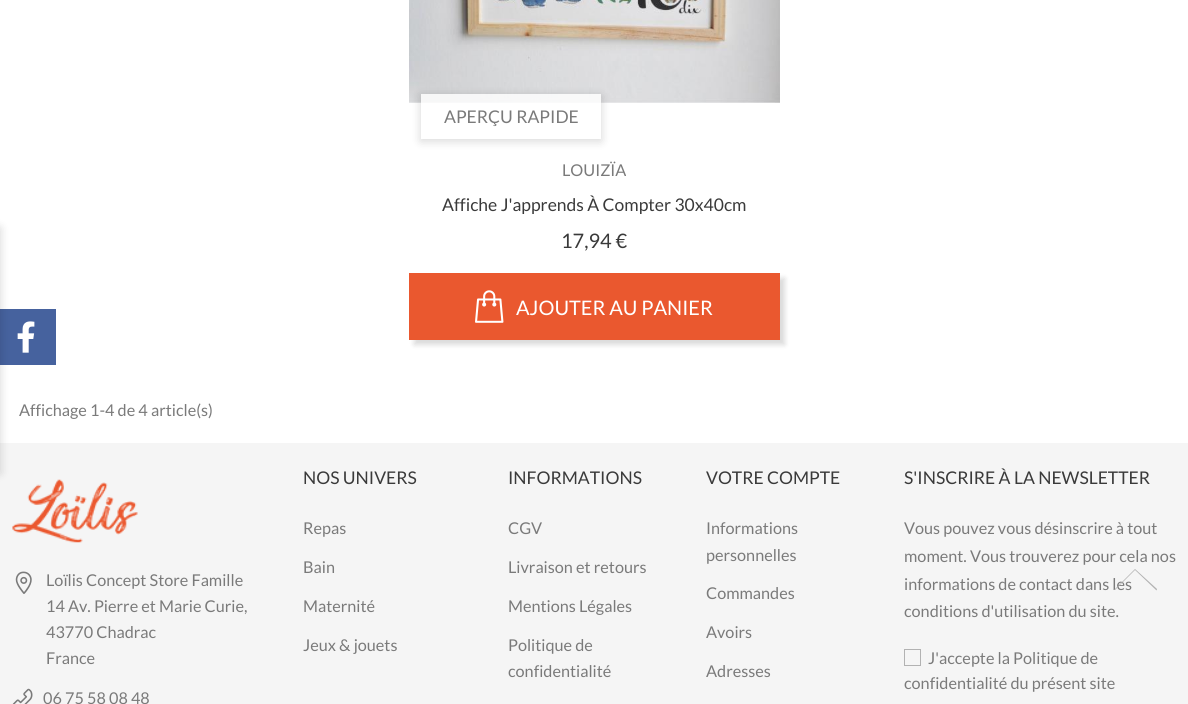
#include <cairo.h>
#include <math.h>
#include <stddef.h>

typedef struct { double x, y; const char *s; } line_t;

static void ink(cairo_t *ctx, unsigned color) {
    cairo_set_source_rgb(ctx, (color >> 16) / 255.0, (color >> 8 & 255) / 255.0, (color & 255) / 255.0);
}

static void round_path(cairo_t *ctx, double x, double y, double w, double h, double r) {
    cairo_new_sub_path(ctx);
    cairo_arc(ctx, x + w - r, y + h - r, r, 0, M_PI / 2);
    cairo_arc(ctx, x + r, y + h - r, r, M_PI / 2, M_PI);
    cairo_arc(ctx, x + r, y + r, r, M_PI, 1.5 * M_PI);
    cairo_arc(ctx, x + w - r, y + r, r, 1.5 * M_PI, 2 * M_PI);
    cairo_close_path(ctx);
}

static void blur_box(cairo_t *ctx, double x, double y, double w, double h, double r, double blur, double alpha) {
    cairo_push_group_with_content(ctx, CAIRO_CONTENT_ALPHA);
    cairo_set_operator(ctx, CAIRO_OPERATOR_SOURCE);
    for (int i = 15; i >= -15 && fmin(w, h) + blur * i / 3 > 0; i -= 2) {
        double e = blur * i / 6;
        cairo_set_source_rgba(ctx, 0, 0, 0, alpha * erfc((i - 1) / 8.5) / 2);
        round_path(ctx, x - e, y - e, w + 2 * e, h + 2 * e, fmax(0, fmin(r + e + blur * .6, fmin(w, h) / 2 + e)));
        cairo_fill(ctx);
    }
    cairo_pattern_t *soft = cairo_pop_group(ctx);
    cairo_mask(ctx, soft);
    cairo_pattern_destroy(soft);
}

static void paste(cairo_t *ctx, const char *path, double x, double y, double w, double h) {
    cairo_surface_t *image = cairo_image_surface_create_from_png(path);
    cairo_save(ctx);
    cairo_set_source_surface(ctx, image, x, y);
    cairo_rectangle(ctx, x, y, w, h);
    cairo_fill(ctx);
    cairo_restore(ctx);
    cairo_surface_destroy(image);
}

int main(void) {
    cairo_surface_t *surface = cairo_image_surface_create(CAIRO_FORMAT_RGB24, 1188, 704);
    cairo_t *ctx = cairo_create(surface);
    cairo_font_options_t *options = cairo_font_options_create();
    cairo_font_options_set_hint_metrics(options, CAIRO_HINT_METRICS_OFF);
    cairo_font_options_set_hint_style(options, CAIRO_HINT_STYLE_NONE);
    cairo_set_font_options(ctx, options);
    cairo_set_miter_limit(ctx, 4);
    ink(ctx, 0xFFFFFF);
    cairo_paint(ctx);
    ink(ctx, 0x46629E);
    cairo_rectangle(ctx, 0, 309, 56, 56);
    cairo_fill(ctx);
    ink(ctx, 0xF5F5F5);
    cairo_rectangle(ctx, 0, 443, 1188, 261);
    cairo_fill(ctx);
    paste(ctx, "media/4.png", 12, 479, 126, 64);
    ink(ctx, 0x000000);
    blur_box(ctx, -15, 228, 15, 245, 0, 5, 0.16);
    paste(ctx, "media/1.png", 409, 0, 371, 103);
    cairo_save(ctx);
    cairo_set_fill_rule(ctx, CAIRO_FILL_RULE_EVEN_ODD);
    cairo_new_path(ctx);
    cairo_move_to(ctx, 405, 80);
    cairo_line_to(ctx, 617, 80);
    cairo_line_to(ctx, 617, 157);
    cairo_line_to(ctx, 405, 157);
    cairo_close_path(ctx);
    cairo_move_to(ctx, 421, 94);
    cairo_line_to(ctx, 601, 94);
    cairo_line_to(ctx, 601, 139);
    cairo_line_to(ctx, 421, 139);
    cairo_close_path(ctx);
    cairo_clip(ctx);
    blur_box(ctx, 421, 96, 180, 45, 0, 5, 0.16);
    cairo_restore(ctx);
    cairo_set_source_rgba(ctx, 1, 1, 1, 0.82);
    cairo_rectangle(ctx, 421, 94, 180, 45);
    cairo_fill(ctx);
    cairo_select_font_face(ctx, "Lato", CAIRO_FONT_SLANT_NORMAL, CAIRO_FONT_WEIGHT_NORMAL);
    cairo_set_font_size(ctx, 17.5);
    ink(ctx, 0x7A7A7A);
    cairo_move_to(ctx, 444, 123);
    cairo_show_text(ctx, "APERÇU RAPIDE");
    cairo_set_font_size(ctx, 16.25);
    cairo_move_to(ctx, 562, 176);
    cairo_show_text(ctx, "LOUIZÏA");
    cairo_set_font_size(ctx, 17.5);
    ink(ctx, 0x3A3A3A);
    cairo_move_to(ctx, 442, 211);
    cairo_show_text(ctx, "Affiche J'apprends À Compter 30x40cm");
    cairo_set_font_size(ctx, 20);
    cairo_move_to(ctx, 561, 248);
    cairo_show_text(ctx, "17,94 €");
    ink(ctx, 0x000000);
    blur_box(ctx, 414, 278, 371, 67, 0, 2.5, 0.14);
    ink(ctx, 0xEA582F);
    cairo_rectangle(ctx, 409, 273, 371, 67);
    cairo_fill(ctx);
    paste(ctx, "media/2.png", 475, 290, 29, 33);
    ink(ctx, 0xFFFFFF);
    cairo_move_to(ctx, 516, 315);
    cairo_show_text(ctx, "AJOUTER AU PANIER");
    cairo_set_font_size(ctx, 16.25);
    ink(ctx, 0x7A7A7A);
    cairo_move_to(ctx, 19, 416);
    cairo_show_text(ctx, "Affichage 1-4 de 4 article(s)");
    paste(ctx, "media/3.png", 17, 321, 18, 32);
    paste(ctx, "media/5.png", 15, 571, 17, 23);
    {
        static const line_t items[] = {
            {46, 586, "Loïlis Concept Store Famille"},
            {46, 612, "14 Av. Pierre et Marie Curie,"},
            {46, 638, "43770 Chadrac"},
            {46, 664, "France"},
        };
        for (size_t i = 0; i < sizeof items / sizeof *items; i++) {
            cairo_move_to(ctx, items[i].x, items[i].y);
            cairo_show_text(ctx, items[i].s);
        }
    }
    paste(ctx, "media/6.png", 12, 688, 21, 16);
    cairo_move_to(ctx, 43, 704);
    cairo_show_text(ctx, "06 75 58 08 48");
    cairo_set_font_size(ctx, 17.5);
    ink(ctx, 0x3A3A3A);
    cairo_move_to(ctx, 303, 484);
    cairo_show_text(ctx, "NOS UNIVERS");
    cairo_set_font_size(ctx, 16.25);
    ink(ctx, 0x7A7A7A);
    {
        static const line_t items[] = {
            {303, 534, "Repas"},
            {303, 573, "Bain"},
            {303, 612, "Maternité"},
            {303, 651, "Jeux & jouets"},
        };
        for (size_t i = 0; i < sizeof items / sizeof *items; i++) {
            cairo_move_to(ctx, items[i].x, items[i].y);
            cairo_show_text(ctx, items[i].s);
        }
    }
    cairo_set_font_size(ctx, 17.5);
    ink(ctx, 0x3A3A3A);
    cairo_move_to(ctx, 508, 484);
    cairo_show_text(ctx, "INFORMATIONS");
    cairo_set_font_size(ctx, 16.25);
    ink(ctx, 0x7A7A7A);
    {
        static const line_t items[] = {
            {508, 534, "CGV"},
            {508, 573, "Livraison et retours"},
            {508, 612, "Mentions Légales"},
            {508, 651, "Politique de"},
            {508, 677, "confidentialité"},
        };
        for (size_t i = 0; i < sizeof items / sizeof *items; i++) {
            cairo_move_to(ctx, items[i].x, items[i].y);
            cairo_show_text(ctx, items[i].s);
        }
    }
    cairo_set_font_size(ctx, 17.5);
    ink(ctx, 0x3A3A3A);
    cairo_move_to(ctx, 706, 484);
    cairo_show_text(ctx, "VOTRE COMPTE");
    cairo_set_font_size(ctx, 16.25);
    ink(ctx, 0x7A7A7A);
    {
        static const line_t items[] = {
            {706, 534, "Informations"},
            {706, 561, "personnelles"},
            {706, 599, "Commandes"},
            {706, 638, "Avoirs"},
            {706, 677, "Adresses"},
        };
        for (size_t i = 0; i < sizeof items / sizeof *items; i++) {
            cairo_move_to(ctx, items[i].x, items[i].y);
            cairo_show_text(ctx, items[i].s);
        }
    }
    cairo_set_font_size(ctx, 17.5);
    ink(ctx, 0x3A3A3A);
    cairo_move_to(ctx, 904, 484);
    cairo_show_text(ctx, "S'INSCRIRE À LA NEWSLETTER");
    cairo_set_font_size(ctx, 16.25);
    ink(ctx, 0x7A7A7A);
    {
        static const line_t items[] = {
            {904, 534, "Vous pouvez vous désinscrire à tout"},
            {904, 562, "moment. Vous trouverez pour cela nos"},
            {904, 590, "informations de contact dans les"},
            {904, 617, "conditions d'utilisation du site."},
        };
        for (size_t i = 0; i < sizeof items / sizeof *items; i++) {
            cairo_move_to(ctx, items[i].x, items[i].y);
            cairo_show_text(ctx, items[i].s);
        }
    }
    cairo_rectangle(ctx, 904.5, 649.5, 16, 16);
    ink(ctx, 0xB2B2B2);
    cairo_set_line_width(ctx, 1);
    cairo_stroke(ctx);
    ink(ctx, 0x7A7A7A);
    cairo_move_to(ctx, 928, 664);
    cairo_show_text(ctx, "J'accepte la Politique de");
    cairo_move_to(ctx, 904, 689);
    cairo_show_text(ctx, "confidentialité du présent site");
    ink(ctx, 0xB2B2B2);
    cairo_new_path(ctx);
    cairo_move_to(ctx, 1135, 569);
    cairo_line_to(ctx, 1114, 590);
    cairo_line_to(ctx, 1115, 590);
    cairo_line_to(ctx, 1135, 570);
    cairo_line_to(ctx, 1156, 590);
    cairo_curve_to(ctx, 1156, 591, 1157, 590, 1157, 589);
    cairo_close_path(ctx);
    cairo_fill(ctx);
    cairo_surface_write_to_png(surface, "image.png");
    cairo_font_options_destroy(options);
    cairo_destroy(ctx);
    cairo_surface_destroy(surface);
    return 0;
}
